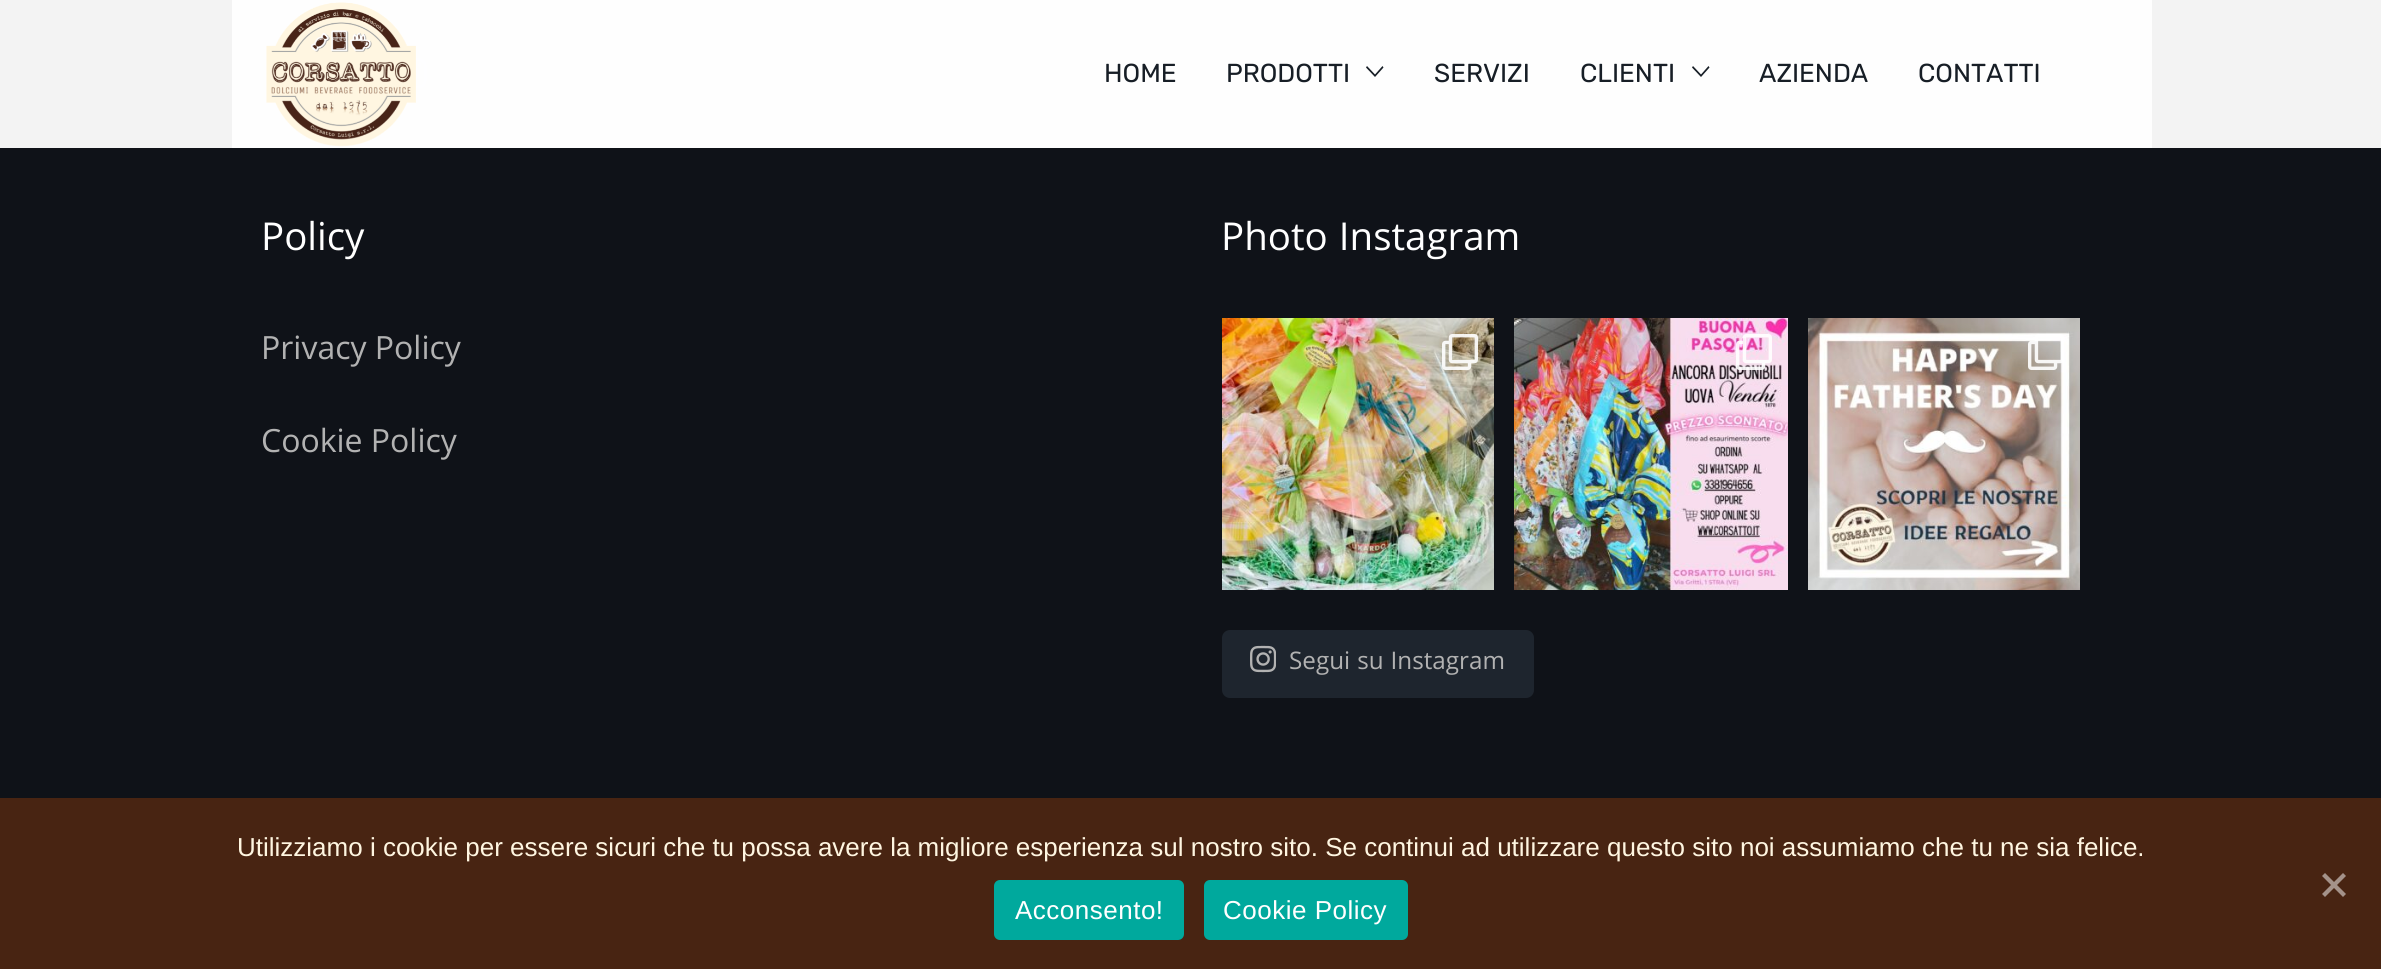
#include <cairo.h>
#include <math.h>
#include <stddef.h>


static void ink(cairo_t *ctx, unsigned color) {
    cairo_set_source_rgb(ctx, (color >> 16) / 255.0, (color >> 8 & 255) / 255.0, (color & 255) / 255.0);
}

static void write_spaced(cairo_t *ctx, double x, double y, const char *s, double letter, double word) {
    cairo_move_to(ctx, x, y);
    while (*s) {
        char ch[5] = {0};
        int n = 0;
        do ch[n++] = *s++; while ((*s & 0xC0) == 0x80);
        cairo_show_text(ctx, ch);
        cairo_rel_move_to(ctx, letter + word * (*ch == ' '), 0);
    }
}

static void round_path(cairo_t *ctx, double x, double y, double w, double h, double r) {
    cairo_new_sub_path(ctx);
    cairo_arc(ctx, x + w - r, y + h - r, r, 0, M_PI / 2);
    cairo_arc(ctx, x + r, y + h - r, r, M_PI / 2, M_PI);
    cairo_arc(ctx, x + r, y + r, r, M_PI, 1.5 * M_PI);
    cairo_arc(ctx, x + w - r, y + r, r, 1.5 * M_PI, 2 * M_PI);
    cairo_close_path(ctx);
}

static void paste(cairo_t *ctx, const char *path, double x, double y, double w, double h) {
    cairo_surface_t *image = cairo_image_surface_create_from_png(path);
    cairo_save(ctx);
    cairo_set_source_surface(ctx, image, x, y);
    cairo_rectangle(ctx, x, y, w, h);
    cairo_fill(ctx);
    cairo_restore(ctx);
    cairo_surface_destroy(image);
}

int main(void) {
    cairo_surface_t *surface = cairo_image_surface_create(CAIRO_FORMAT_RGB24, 2381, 969);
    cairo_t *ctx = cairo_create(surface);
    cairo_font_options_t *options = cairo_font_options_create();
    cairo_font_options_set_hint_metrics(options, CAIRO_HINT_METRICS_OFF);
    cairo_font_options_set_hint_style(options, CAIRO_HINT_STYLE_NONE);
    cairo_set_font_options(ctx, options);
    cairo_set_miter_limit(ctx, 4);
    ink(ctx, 0x0F1218);
    cairo_paint(ctx);
    ink(ctx, 0xF3F3F3);
    cairo_rectangle(ctx, 0, 0, 2381, 148);
    cairo_fill(ctx);
    ink(ctx, 0xFEFEFE);
    cairo_rectangle(ctx, 232, 0, 1920, 148);
    cairo_fill(ctx);
    paste(ctx, "media/2.png", 415, 57, 12, 32);
    paste(ctx, "media/1.png", 266, 2, 150, 145);
    cairo_select_font_face(ctx, "Rubik", CAIRO_FONT_SLANT_NORMAL, CAIRO_FONT_WEIGHT_NORMAL);
    cairo_set_font_size(ctx, 26);
    ink(ctx, 0x171E26);
    cairo_move_to(ctx, 1104, 82);
    cairo_show_text(ctx, "HOME");
    cairo_move_to(ctx, 1226, 82);
    cairo_show_text(ctx, "PRODOTTI");
    cairo_new_path(ctx);
    cairo_move_to(ctx, 1382.5, 66);
    cairo_line_to(ctx, 1383.5, 67.5);
    cairo_line_to(ctx, 1375, 77);
    cairo_line_to(ctx, 1366, 67.5);
    cairo_line_to(ctx, 1367, 66);
    cairo_line_to(ctx, 1375, 74.5);
    cairo_close_path(ctx);
    cairo_fill(ctx);
    cairo_move_to(ctx, 1434, 82);
    cairo_show_text(ctx, "SERVIZI");
    cairo_move_to(ctx, 1580, 82);
    cairo_show_text(ctx, "CLIENTI");
    cairo_new_path(ctx);
    cairo_move_to(ctx, 1708.5, 66);
    cairo_line_to(ctx, 1709.5, 67.5);
    cairo_line_to(ctx, 1701, 77);
    cairo_line_to(ctx, 1692, 67.5);
    cairo_line_to(ctx, 1693, 66);
    cairo_line_to(ctx, 1701, 74.5);
    cairo_close_path(ctx);
    cairo_fill(ctx);
    cairo_move_to(ctx, 1759, 82);
    cairo_show_text(ctx, "AZIENDA");
    cairo_move_to(ctx, 1918, 82);
    cairo_show_text(ctx, "CONTATTI");
    cairo_select_font_face(ctx, "Khula", CAIRO_FONT_SLANT_NORMAL, CAIRO_FONT_WEIGHT_NORMAL);
    cairo_set_font_size(ctx, 41.25);
    ink(ctx, 0xFFFFFF);
    cairo_move_to(ctx, 261, 250);
    cairo_show_text(ctx, "Policy");
    cairo_select_font_face(ctx, "Open Sans", CAIRO_FONT_SLANT_NORMAL, CAIRO_FONT_WEIGHT_NORMAL);
    cairo_set_font_size(ctx, 32);
    ink(ctx, 0xB2B2B2);
    cairo_move_to(ctx, 261, 359);
    cairo_show_text(ctx, "Privacy Policy");
    cairo_move_to(ctx, 261, 452);
    cairo_show_text(ctx, "Cookie Policy");
    cairo_select_font_face(ctx, "Khula", CAIRO_FONT_SLANT_NORMAL, CAIRO_FONT_WEIGHT_NORMAL);
    cairo_set_font_size(ctx, 41.25);
    ink(ctx, 0xFFFFFF);
    cairo_move_to(ctx, 1221, 250);
    cairo_show_text(ctx, "Photo Instagram");
    paste(ctx, "media/3.png", 1222, 318, 272, 272);
    paste(ctx, "media/4.png", 1442, 334, 36, 36);
    paste(ctx, "media/5.png", 1514, 318, 274, 272);
    paste(ctx, "media/6.png", 1736, 334, 36, 36);
    paste(ctx, "media/7.png", 1808, 318, 272, 272);
    paste(ctx, "media/8.png", 2028, 334, 36, 36);
    ink(ctx, 0x1E252E);
    round_path(ctx, 1222, 630, 312, 68, 8);
    cairo_fill(ctx);
    paste(ctx, "media/9.png", 1250, 645, 26, 28);
    cairo_set_font_size(ctx, 26);
    ink(ctx, 0xB2B2B2);
    cairo_move_to(ctx, 1289, 669);
    cairo_show_text(ctx, "Segui su Instagram");
    ink(ctx, 0x482412);
    cairo_rectangle(ctx, 0, 798, 2381, 171);
    cairo_fill(ctx);
    cairo_select_font_face(ctx, "Liberation Sans", CAIRO_FONT_SLANT_NORMAL, CAIRO_FONT_WEIGHT_NORMAL);
    ink(ctx, 0xFFF6E1);
    cairo_move_to(ctx, 237, 856);
    cairo_show_text(ctx, "Utilizziamo i cookie per essere sicuri che tu possa avere la migliore esperienza sul nostro sito. Se continui ad utilizzare questo sito noi assumiamo che tu ne sia felice.");
    ink(ctx, 0xA49289);
    cairo_new_path(ctx);
    cairo_move_to(ctx, 2343, 873);
    cairo_line_to(ctx, 2346, 876);
    cairo_line_to(ctx, 2325, 897);
    cairo_line_to(ctx, 2322, 894);
    cairo_close_path(ctx);
    cairo_fill(ctx);
    cairo_new_path(ctx);
    cairo_move_to(ctx, 2322, 876);
    cairo_line_to(ctx, 2325, 873);
    cairo_line_to(ctx, 2346, 894);
    cairo_line_to(ctx, 2343, 897);
    cairo_close_path(ctx);
    cairo_fill(ctx);
    ink(ctx, 0x00A99D);
    round_path(ctx, 994, 880, 190, 60, 6);
    cairo_fill(ctx);
    ink(ctx, 0xFFFFFF);
    write_spaced(ctx, 1015, 919, "Acconsento!", 0.5, 0);
    ink(ctx, 0x00A99D);
    round_path(ctx, 1204, 880, 204, 60, 6);
    cairo_fill(ctx);
    ink(ctx, 0xFFFFFF);
    write_spaced(ctx, 1223, 919, "Cookie Policy", 0.5, 0);
    cairo_surface_write_to_png(surface, "image.png");
    cairo_font_options_destroy(options);
    cairo_destroy(ctx);
    cairo_surface_destroy(surface);
    return 0;
}
